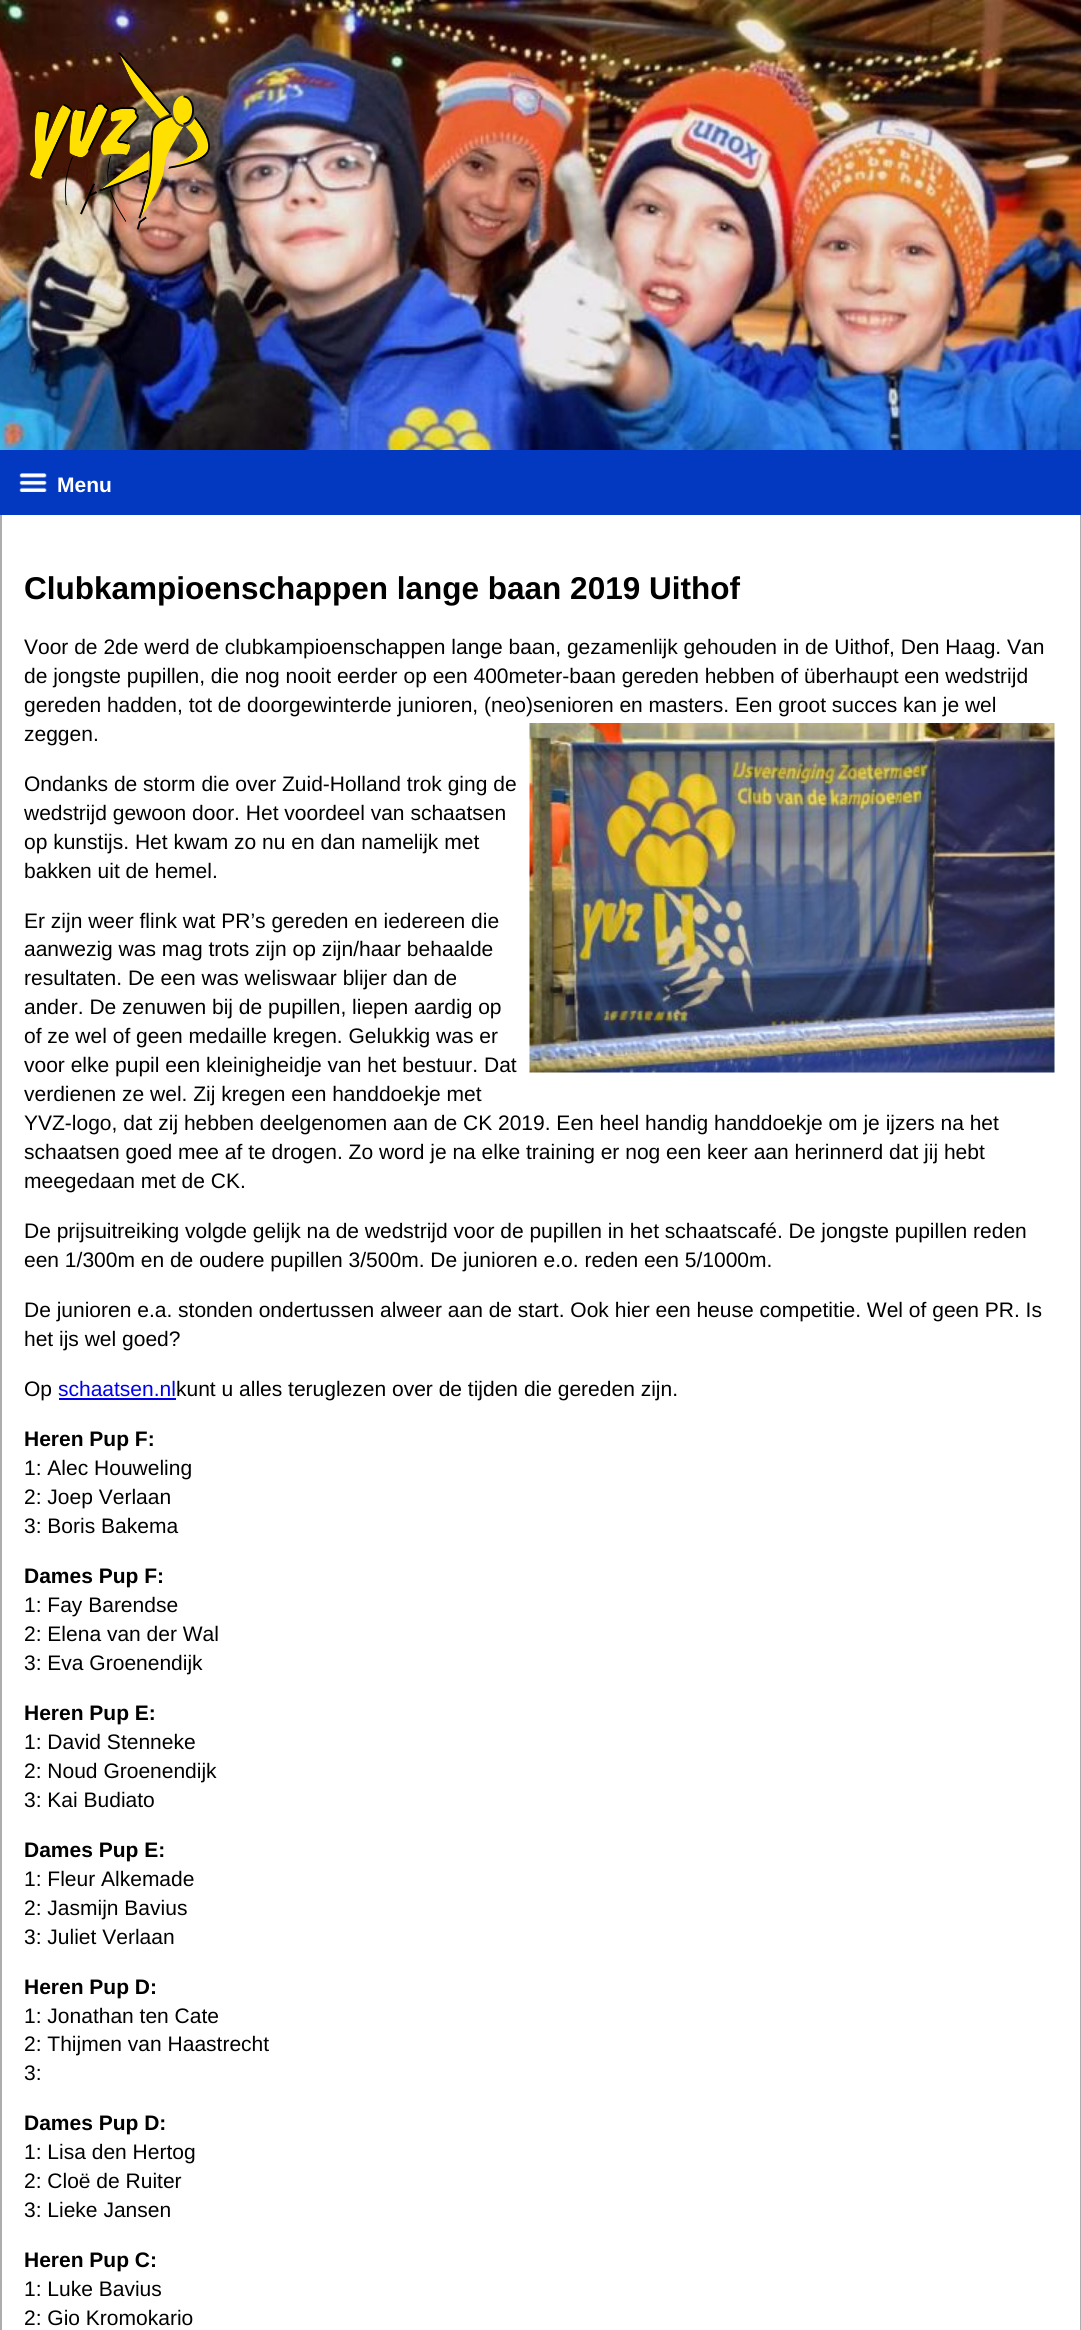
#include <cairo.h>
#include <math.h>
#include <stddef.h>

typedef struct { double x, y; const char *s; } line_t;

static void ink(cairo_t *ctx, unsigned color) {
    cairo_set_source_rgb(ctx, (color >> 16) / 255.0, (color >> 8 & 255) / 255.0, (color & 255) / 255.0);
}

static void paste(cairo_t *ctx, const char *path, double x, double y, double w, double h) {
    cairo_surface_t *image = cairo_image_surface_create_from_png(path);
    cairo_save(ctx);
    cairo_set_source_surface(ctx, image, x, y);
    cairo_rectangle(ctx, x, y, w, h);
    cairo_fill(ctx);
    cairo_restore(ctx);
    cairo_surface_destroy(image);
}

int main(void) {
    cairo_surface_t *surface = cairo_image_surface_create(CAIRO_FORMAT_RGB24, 1081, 2330);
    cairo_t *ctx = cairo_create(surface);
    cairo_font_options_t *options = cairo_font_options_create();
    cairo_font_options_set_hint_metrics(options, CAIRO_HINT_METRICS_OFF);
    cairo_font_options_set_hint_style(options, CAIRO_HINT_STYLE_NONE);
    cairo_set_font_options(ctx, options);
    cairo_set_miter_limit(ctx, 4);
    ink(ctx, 0xFFFFFF);
    cairo_paint(ctx);
    paste(ctx, "media/1.png", 0, 0, 1081, 450);
    paste(ctx, "media/2.png", 30, 52, 180, 178);
    ink(ctx, 0x0339C0);
    cairo_rectangle(ctx, 0, 450, 1081, 65);
    cairo_fill(ctx);
    paste(ctx, "media/3.png", 19, 473, 28, 19);
    cairo_select_font_face(ctx, "Liberation Sans", CAIRO_FONT_SLANT_NORMAL, CAIRO_FONT_WEIGHT_BOLD);
    cairo_set_font_size(ctx, 21);
    ink(ctx, 0xFFFFFF);
    cairo_move_to(ctx, 57, 492);
    cairo_show_text(ctx, "Menu");
    ink(ctx, 0xADADAD);
    cairo_rectangle(ctx, 1080, 515, 1, 1815);
    cairo_fill(ctx);
    cairo_rectangle(ctx, 0, 515, 2, 1815);
    cairo_fill(ctx);
    cairo_set_font_size(ctx, 31.5);
    ink(ctx, 0x000000);
    cairo_move_to(ctx, 24, 599);
    cairo_show_text(ctx, "Clubkampioenschappen lange baan 2019 Uithof");
    cairo_select_font_face(ctx, "Liberation Sans", CAIRO_FONT_SLANT_NORMAL, CAIRO_FONT_WEIGHT_NORMAL);
    cairo_set_font_size(ctx, 21);
    {
        static const line_t items[] = {
            {24, 654, "Voor de 2de werd de clubkampioenschappen lange baan, gezamenlijk gehouden in de Uithof, Den Haag. Van"},
            {24, 683, "de jongste pupillen, die nog nooit eerder op een 400meter-baan gereden hebben of überhaupt een wedstrijd"},
            {24, 712, "gereden hadden, tot de doorgewinterde junioren, (neo)senioren en masters. Een groot succes kan je wel"},
            {24, 741, "zeggen."},
        };
        for (size_t i = 0; i < sizeof items / sizeof *items; i++) {
            cairo_move_to(ctx, items[i].x, items[i].y);
            cairo_show_text(ctx, items[i].s);
        }
    }
    paste(ctx, "media/4.png", 529, 723, 526, 350);
    {
        static const line_t items[] = {
            {24, 791, "Ondanks de storm die over Zuid-Holland trok ging de"},
            {24, 820, "wedstrijd gewoon door. Het voordeel van schaatsen"},
            {24, 849, "op kunstijs. Het kwam zo nu en dan namelijk met"},
            {24, 878, "bakken uit de hemel."},
            {24, 928, "Er zijn weer flink wat PR’s gereden en iedereen die"},
            {24, 956, "aanwezig was mag trots zijn op zijn/haar behaalde"},
            {24, 985, "resultaten. De een was weliswaar blijer dan de"},
            {24, 1014, "ander. De zenuwen bij de pupillen, liepen aardig op"},
            {24, 1043, "of ze wel of geen medaille kregen. Gelukkig was er"},
            {24, 1072, "voor elke pupil een kleinigheidje van het bestuur. Dat"},
            {24, 1101, "verdienen ze wel. Zij kregen een handdoekje met"},
            {24, 1130, "YVZ-logo, dat zij hebben deelgenomen aan de CK 2019. Een heel handig handdoekje om je ijzers na het"},
            {24, 1159, "schaatsen goed mee af te drogen. Zo word je na elke training er nog een keer aan herinnerd dat jij hebt"},
            {24, 1188, "meegedaan met de CK."},
            {24, 1238, "De prijsuitreiking volgde gelijk na de wedstrijd voor de pupillen in het schaatscafé. De jongste pupillen reden"},
            {24, 1267, "een 1/300m en de oudere pupillen 3/500m. De junioren e.o. reden een 5/1000m."},
            {24, 1317, "De junioren e.a. stonden ondertussen alweer aan de start. Ook hier een heuse competitie. Wel of geen PR. Is"},
            {24, 1346, "het ijs wel goed?"},
            {24, 1396, "Op"},
        };
        for (size_t i = 0; i < sizeof items / sizeof *items; i++) {
            cairo_move_to(ctx, items[i].x, items[i].y);
            cairo_show_text(ctx, items[i].s);
        }
    }
    ink(ctx, 0x0000EE);
    cairo_move_to(ctx, 58, 1396);
    cairo_show_text(ctx, "schaatsen.nl");
    cairo_rectangle(ctx, 59, 1398, 117, 2);
    cairo_fill(ctx);
    ink(ctx, 0x000000);
    cairo_move_to(ctx, 176, 1396);
    cairo_show_text(ctx, "kunt u alles teruglezen over de tijden die gereden zijn.");
    cairo_select_font_face(ctx, "Liberation Sans", CAIRO_FONT_SLANT_NORMAL, CAIRO_FONT_WEIGHT_BOLD);
    cairo_move_to(ctx, 24, 1446);
    cairo_show_text(ctx, "Heren Pup F:");
    cairo_select_font_face(ctx, "Liberation Sans", CAIRO_FONT_SLANT_NORMAL, CAIRO_FONT_WEIGHT_NORMAL);
    {
        static const line_t items[] = {
            {24, 1475, "1: Alec Houweling"},
            {24, 1504, "2: Joep Verlaan"},
            {24, 1533, "3: Boris Bakema"},
        };
        for (size_t i = 0; i < sizeof items / sizeof *items; i++) {
            cairo_move_to(ctx, items[i].x, items[i].y);
            cairo_show_text(ctx, items[i].s);
        }
    }
    cairo_select_font_face(ctx, "Liberation Sans", CAIRO_FONT_SLANT_NORMAL, CAIRO_FONT_WEIGHT_BOLD);
    cairo_move_to(ctx, 24, 1583);
    cairo_show_text(ctx, "Dames Pup F:");
    cairo_select_font_face(ctx, "Liberation Sans", CAIRO_FONT_SLANT_NORMAL, CAIRO_FONT_WEIGHT_NORMAL);
    {
        static const line_t items[] = {
            {24, 1612, "1: Fay Barendse"},
            {24, 1641, "2: Elena van der Wal"},
            {24, 1670, "3: Eva Groenendijk"},
        };
        for (size_t i = 0; i < sizeof items / sizeof *items; i++) {
            cairo_move_to(ctx, items[i].x, items[i].y);
            cairo_show_text(ctx, items[i].s);
        }
    }
    cairo_select_font_face(ctx, "Liberation Sans", CAIRO_FONT_SLANT_NORMAL, CAIRO_FONT_WEIGHT_BOLD);
    cairo_move_to(ctx, 24, 1720);
    cairo_show_text(ctx, "Heren Pup E:");
    cairo_select_font_face(ctx, "Liberation Sans", CAIRO_FONT_SLANT_NORMAL, CAIRO_FONT_WEIGHT_NORMAL);
    {
        static const line_t items[] = {
            {24, 1749, "1: David Stenneke"},
            {24, 1778, "2: Noud Groenendijk"},
            {24, 1807, "3: Kai Budiato"},
        };
        for (size_t i = 0; i < sizeof items / sizeof *items; i++) {
            cairo_move_to(ctx, items[i].x, items[i].y);
            cairo_show_text(ctx, items[i].s);
        }
    }
    cairo_select_font_face(ctx, "Liberation Sans", CAIRO_FONT_SLANT_NORMAL, CAIRO_FONT_WEIGHT_BOLD);
    cairo_move_to(ctx, 24, 1857);
    cairo_show_text(ctx, "Dames Pup E:");
    cairo_select_font_face(ctx, "Liberation Sans", CAIRO_FONT_SLANT_NORMAL, CAIRO_FONT_WEIGHT_NORMAL);
    {
        static const line_t items[] = {
            {24, 1886, "1: Fleur Alkemade"},
            {24, 1915, "2: Jasmijn Bavius"},
            {24, 1944, "3: Juliet Verlaan"},
        };
        for (size_t i = 0; i < sizeof items / sizeof *items; i++) {
            cairo_move_to(ctx, items[i].x, items[i].y);
            cairo_show_text(ctx, items[i].s);
        }
    }
    cairo_select_font_face(ctx, "Liberation Sans", CAIRO_FONT_SLANT_NORMAL, CAIRO_FONT_WEIGHT_BOLD);
    cairo_move_to(ctx, 24, 1994);
    cairo_show_text(ctx, "Heren Pup D:");
    cairo_select_font_face(ctx, "Liberation Sans", CAIRO_FONT_SLANT_NORMAL, CAIRO_FONT_WEIGHT_NORMAL);
    {
        static const line_t items[] = {
            {24, 2023, "1: Jonathan ten Cate"},
            {24, 2051, "2: Thijmen van Haastrecht"},
            {24, 2080, "3:"},
        };
        for (size_t i = 0; i < sizeof items / sizeof *items; i++) {
            cairo_move_to(ctx, items[i].x, items[i].y);
            cairo_show_text(ctx, items[i].s);
        }
    }
    cairo_select_font_face(ctx, "Liberation Sans", CAIRO_FONT_SLANT_NORMAL, CAIRO_FONT_WEIGHT_BOLD);
    cairo_move_to(ctx, 24, 2130);
    cairo_show_text(ctx, "Dames Pup D:");
    cairo_select_font_face(ctx, "Liberation Sans", CAIRO_FONT_SLANT_NORMAL, CAIRO_FONT_WEIGHT_NORMAL);
    {
        static const line_t items[] = {
            {24, 2159, "1: Lisa den Hertog"},
            {24, 2188, "2: Cloë de Ruiter"},
            {24, 2217, "3: Lieke Jansen"},
        };
        for (size_t i = 0; i < sizeof items / sizeof *items; i++) {
            cairo_move_to(ctx, items[i].x, items[i].y);
            cairo_show_text(ctx, items[i].s);
        }
    }
    cairo_select_font_face(ctx, "Liberation Sans", CAIRO_FONT_SLANT_NORMAL, CAIRO_FONT_WEIGHT_BOLD);
    cairo_move_to(ctx, 24, 2267);
    cairo_show_text(ctx, "Heren Pup C:");
    cairo_select_font_face(ctx, "Liberation Sans", CAIRO_FONT_SLANT_NORMAL, CAIRO_FONT_WEIGHT_NORMAL);
    cairo_move_to(ctx, 24, 2296);
    cairo_show_text(ctx, "1: Luke Bavius");
    cairo_move_to(ctx, 24, 2325);
    cairo_show_text(ctx, "2: Gio Kromokario");
    cairo_surface_write_to_png(surface, "image.png");
    cairo_font_options_destroy(options);
    cairo_destroy(ctx);
    cairo_surface_destroy(surface);
    return 0;
}
